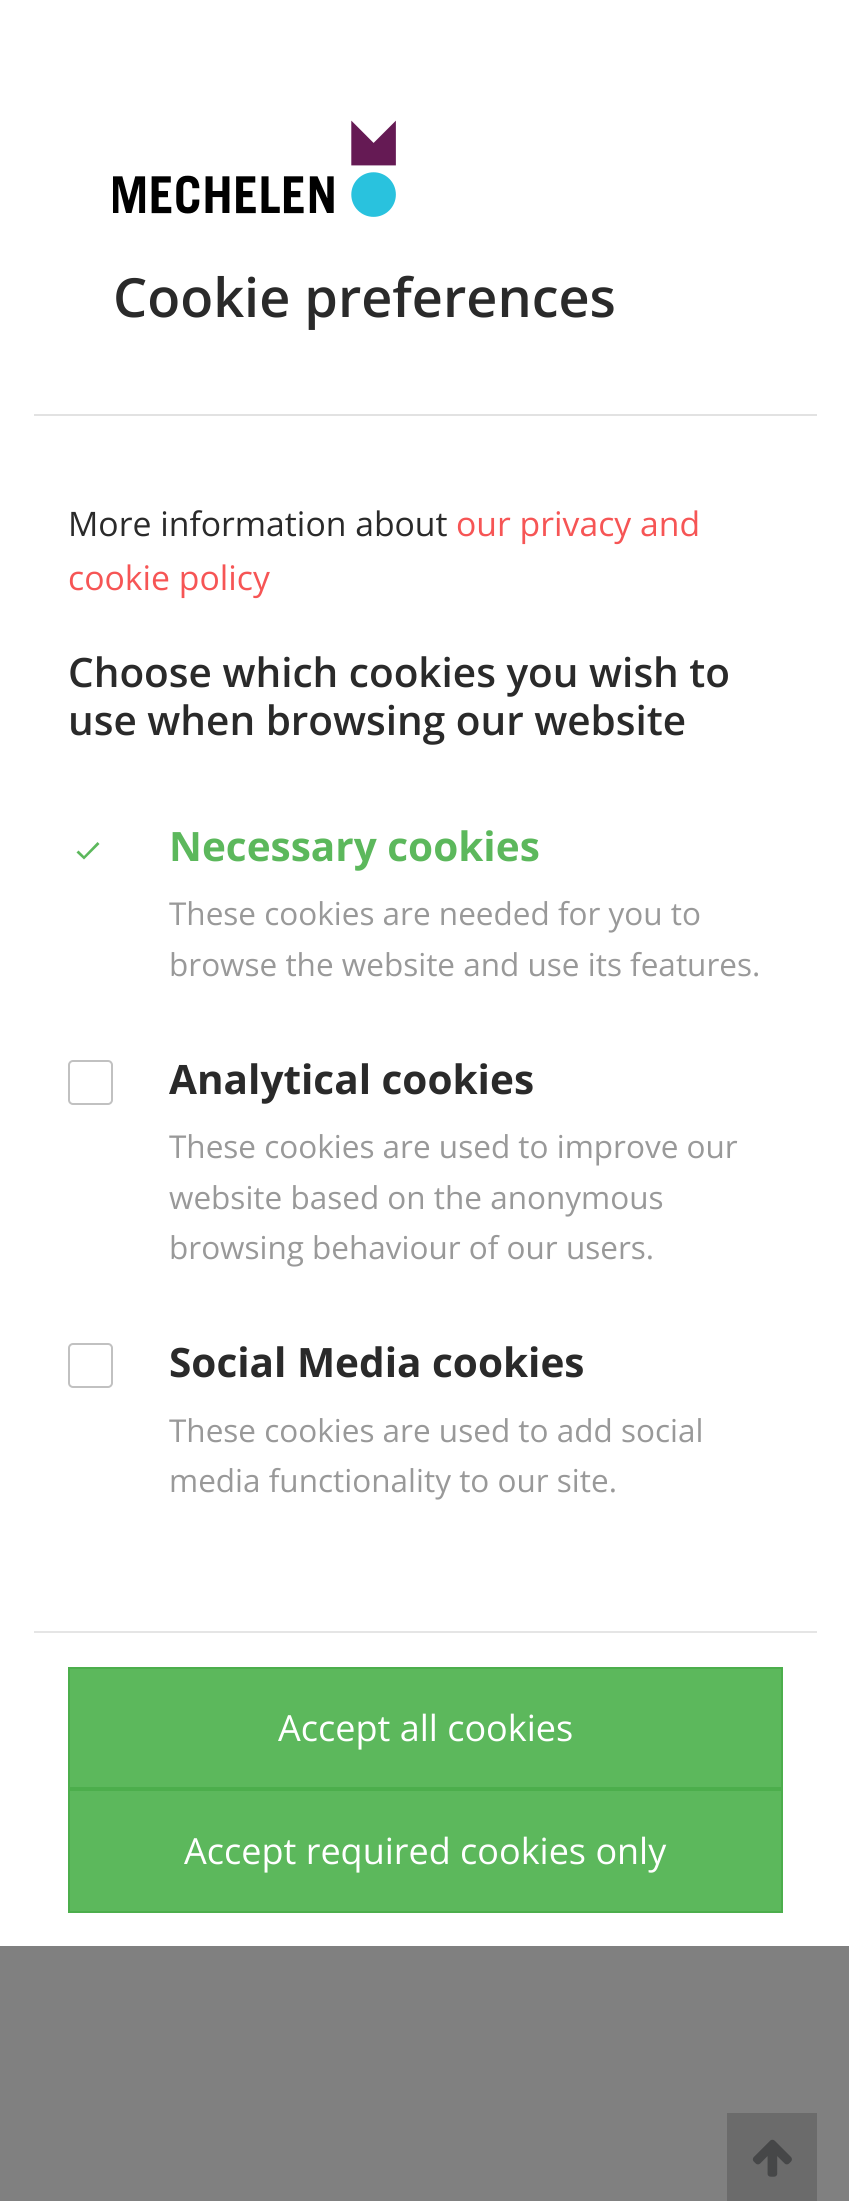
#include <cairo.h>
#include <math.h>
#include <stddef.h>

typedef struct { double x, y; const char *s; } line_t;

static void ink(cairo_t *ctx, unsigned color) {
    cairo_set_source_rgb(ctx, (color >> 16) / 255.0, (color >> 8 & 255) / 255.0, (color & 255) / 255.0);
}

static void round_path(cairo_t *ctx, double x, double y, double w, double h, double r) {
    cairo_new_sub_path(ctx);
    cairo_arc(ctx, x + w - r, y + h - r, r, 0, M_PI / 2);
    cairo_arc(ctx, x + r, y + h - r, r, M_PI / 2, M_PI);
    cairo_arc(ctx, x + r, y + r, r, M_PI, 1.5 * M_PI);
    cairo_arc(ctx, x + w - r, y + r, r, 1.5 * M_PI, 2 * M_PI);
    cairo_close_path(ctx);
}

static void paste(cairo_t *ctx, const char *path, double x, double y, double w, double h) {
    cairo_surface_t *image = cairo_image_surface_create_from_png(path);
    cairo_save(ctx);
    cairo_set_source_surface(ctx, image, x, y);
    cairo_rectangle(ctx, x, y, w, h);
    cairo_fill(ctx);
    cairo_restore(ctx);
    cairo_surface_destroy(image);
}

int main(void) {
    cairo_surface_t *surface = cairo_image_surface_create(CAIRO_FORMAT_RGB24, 849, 2201);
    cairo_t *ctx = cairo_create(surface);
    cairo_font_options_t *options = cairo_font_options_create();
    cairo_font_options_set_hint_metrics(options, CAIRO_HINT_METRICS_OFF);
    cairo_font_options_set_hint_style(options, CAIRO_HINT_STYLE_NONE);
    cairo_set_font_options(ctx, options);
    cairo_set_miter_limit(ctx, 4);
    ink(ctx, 0x808080);
    cairo_paint(ctx);
    ink(ctx, 0xFFFFFF);
    cairo_rectangle(ctx, 0, 0, 849, 1946);
    cairo_fill(ctx);
    ink(ctx, 0xE2E2E2);
    cairo_rectangle(ctx, 34, 414, 783, 2);
    cairo_fill(ctx);
    paste(ctx, "media/1.png", 113, 120, 283, 97);
    cairo_select_font_face(ctx, "Open Sans SemiBold", CAIRO_FONT_SLANT_NORMAL, CAIRO_FONT_WEIGHT_NORMAL);
    cairo_set_font_size(ctx, 54);
    ink(ctx, 0x2A2A2A);
    cairo_move_to(ctx, 113, 317);
    cairo_show_text(ctx, "Cookie preferences");
    cairo_select_font_face(ctx, "Open Sans", CAIRO_FONT_SLANT_NORMAL, CAIRO_FONT_WEIGHT_NORMAL);
    cairo_set_font_size(ctx, 33.75);
    cairo_move_to(ctx, 68, 536);
    cairo_show_text(ctx, "More information about");
    ink(ctx, 0xF65555);
    cairo_move_to(ctx, 456, 536);
    cairo_show_text(ctx, "our privacy and");
    cairo_move_to(ctx, 68, 590);
    cairo_show_text(ctx, "cookie policy");
    cairo_select_font_face(ctx, "Open Sans SemiBold", CAIRO_FONT_SLANT_NORMAL, CAIRO_FONT_WEIGHT_NORMAL);
    cairo_set_font_size(ctx, 40.5);
    ink(ctx, 0x2A2A2A);
    cairo_move_to(ctx, 68, 687);
    cairo_show_text(ctx, "Choose which cookies you wish to");
    cairo_move_to(ctx, 68, 735);
    cairo_show_text(ctx, "use when browsing our website");
    ink(ctx, 0x5CB85C);
    cairo_new_path(ctx);
    cairo_move_to(ctx, 84, 856);
    cairo_line_to(ctx, 97.5, 842);
    cairo_line_to(ctx, 99.5, 844);
    cairo_line_to(ctx, 84, 859.5);
    cairo_line_to(ctx, 76.5, 852.5);
    cairo_line_to(ctx, 78.5, 850.5);
    cairo_close_path(ctx);
    cairo_fill(ctx);
    cairo_select_font_face(ctx, "Open Sans", CAIRO_FONT_SLANT_NORMAL, CAIRO_FONT_WEIGHT_BOLD);
    cairo_move_to(ctx, 169, 861);
    cairo_show_text(ctx, "Necessary cookies");
    cairo_select_font_face(ctx, "Open Sans", CAIRO_FONT_SLANT_NORMAL, CAIRO_FONT_WEIGHT_NORMAL);
    cairo_set_font_size(ctx, 31.5);
    ink(ctx, 0x999999);
    cairo_move_to(ctx, 169, 925);
    cairo_show_text(ctx, "These cookies are needed for you to");
    cairo_move_to(ctx, 169, 976);
    cairo_show_text(ctx, "browse the website and use its features.");
    round_path(ctx, 69, 1061, 43, 43, 4);
    ink(ctx, 0xC1C1C1);
    cairo_stroke(ctx);
    cairo_select_font_face(ctx, "Open Sans", CAIRO_FONT_SLANT_NORMAL, CAIRO_FONT_WEIGHT_BOLD);
    cairo_set_font_size(ctx, 40.5);
    ink(ctx, 0x2A2A2A);
    cairo_move_to(ctx, 169, 1094);
    cairo_show_text(ctx, "Analytical cookies");
    cairo_select_font_face(ctx, "Open Sans", CAIRO_FONT_SLANT_NORMAL, CAIRO_FONT_WEIGHT_NORMAL);
    cairo_set_font_size(ctx, 31.5);
    ink(ctx, 0x999999);
    {
        static const line_t items[] = {
            {169, 1158, "These cookies are used to improve our"},
            {169, 1209, "website based on the anonymous"},
            {169, 1259, "browsing behaviour of our users."},
        };
        for (size_t i = 0; i < sizeof items / sizeof *items; i++) {
            cairo_move_to(ctx, items[i].x, items[i].y);
            cairo_show_text(ctx, items[i].s);
        }
    }
    round_path(ctx, 69, 1344, 43, 43, 4);
    ink(ctx, 0xC1C1C1);
    cairo_stroke(ctx);
    cairo_select_font_face(ctx, "Open Sans", CAIRO_FONT_SLANT_NORMAL, CAIRO_FONT_WEIGHT_BOLD);
    cairo_set_font_size(ctx, 40.5);
    ink(ctx, 0x2A2A2A);
    cairo_move_to(ctx, 169, 1377);
    cairo_show_text(ctx, "Social Media cookies");
    cairo_select_font_face(ctx, "Open Sans", CAIRO_FONT_SLANT_NORMAL, CAIRO_FONT_WEIGHT_NORMAL);
    cairo_set_font_size(ctx, 31.5);
    ink(ctx, 0x999999);
    cairo_move_to(ctx, 169, 1442);
    cairo_show_text(ctx, "These cookies are used to add social");
    cairo_move_to(ctx, 169, 1492);
    cairo_show_text(ctx, "media functionality to our site.");
    ink(ctx, 0xE5E5E5);
    cairo_rectangle(ctx, 34, 1631, 783, 2);
    cairo_fill(ctx);
    ink(ctx, 0x5CB85C);
    cairo_rectangle(ctx, 69, 1668, 713, 120);
    cairo_fill_preserve(ctx);
    ink(ctx, 0x4CAE4C);
    cairo_stroke(ctx);
    cairo_set_font_size(ctx, 36);
    ink(ctx, 0xFFFFFF);
    cairo_move_to(ctx, 278, 1741);
    cairo_show_text(ctx, "Accept all cookies");
    ink(ctx, 0x5CB85C);
    cairo_rectangle(ctx, 69, 1790, 713, 122);
    cairo_fill_preserve(ctx);
    ink(ctx, 0x4CAE4C);
    cairo_stroke(ctx);
    ink(ctx, 0xFFFFFF);
    cairo_move_to(ctx, 184, 1864);
    cairo_show_text(ctx, "Accept required cookies only");
    ink(ctx, 0x6B6B6B);
    cairo_rectangle(ctx, 727, 2113, 90, 88);
    cairo_fill(ctx);
    paste(ctx, "media/2.png", 752, 2139, 40, 38);
    cairo_surface_write_to_png(surface, "image.png");
    cairo_font_options_destroy(options);
    cairo_destroy(ctx);
    cairo_surface_destroy(surface);
    return 0;
}
